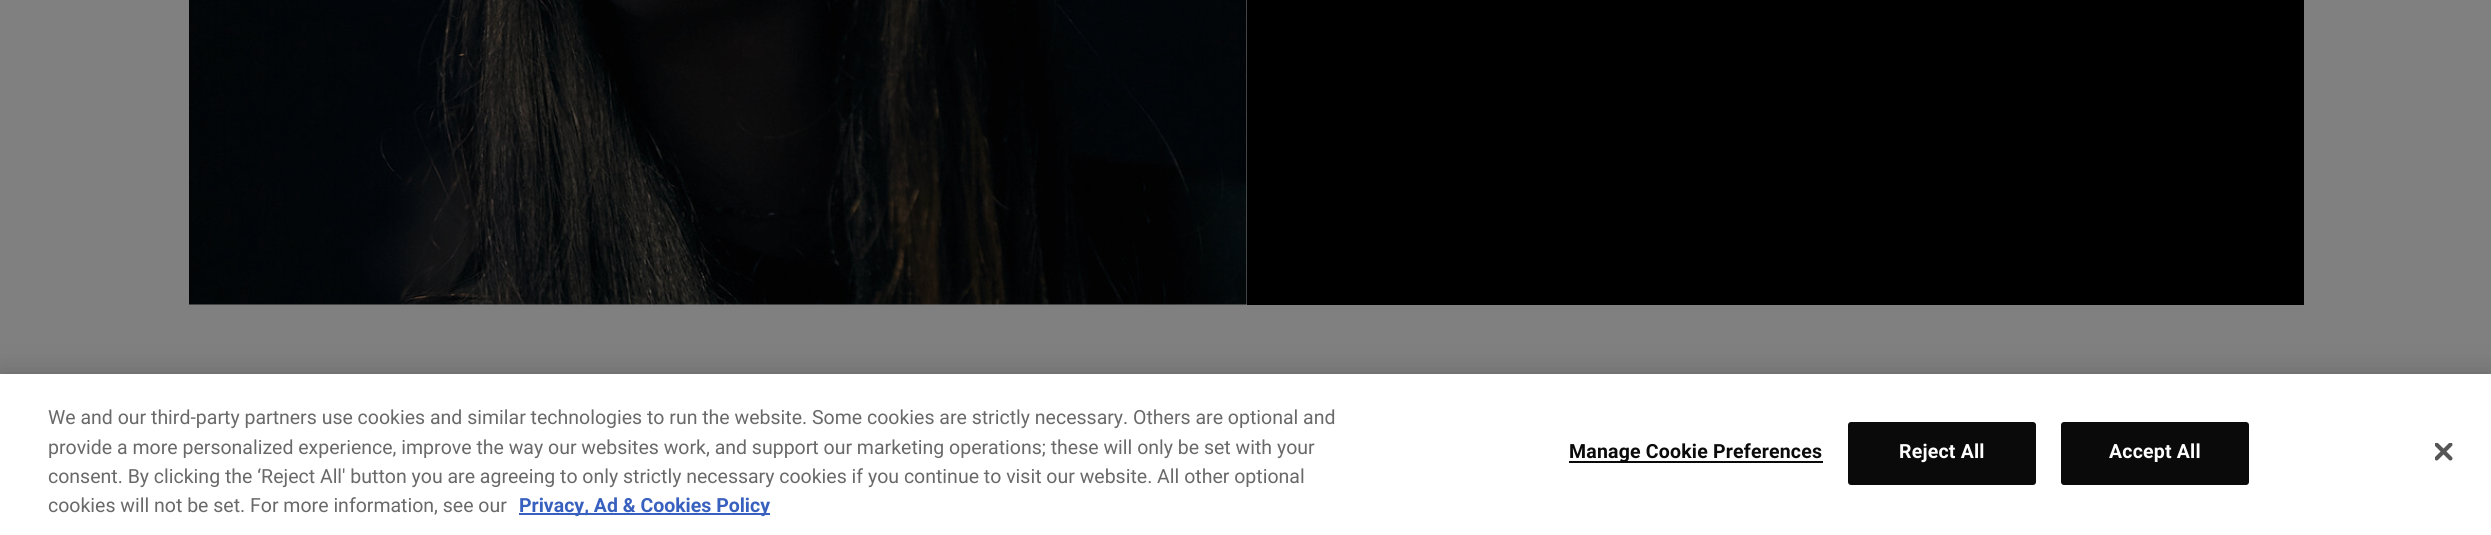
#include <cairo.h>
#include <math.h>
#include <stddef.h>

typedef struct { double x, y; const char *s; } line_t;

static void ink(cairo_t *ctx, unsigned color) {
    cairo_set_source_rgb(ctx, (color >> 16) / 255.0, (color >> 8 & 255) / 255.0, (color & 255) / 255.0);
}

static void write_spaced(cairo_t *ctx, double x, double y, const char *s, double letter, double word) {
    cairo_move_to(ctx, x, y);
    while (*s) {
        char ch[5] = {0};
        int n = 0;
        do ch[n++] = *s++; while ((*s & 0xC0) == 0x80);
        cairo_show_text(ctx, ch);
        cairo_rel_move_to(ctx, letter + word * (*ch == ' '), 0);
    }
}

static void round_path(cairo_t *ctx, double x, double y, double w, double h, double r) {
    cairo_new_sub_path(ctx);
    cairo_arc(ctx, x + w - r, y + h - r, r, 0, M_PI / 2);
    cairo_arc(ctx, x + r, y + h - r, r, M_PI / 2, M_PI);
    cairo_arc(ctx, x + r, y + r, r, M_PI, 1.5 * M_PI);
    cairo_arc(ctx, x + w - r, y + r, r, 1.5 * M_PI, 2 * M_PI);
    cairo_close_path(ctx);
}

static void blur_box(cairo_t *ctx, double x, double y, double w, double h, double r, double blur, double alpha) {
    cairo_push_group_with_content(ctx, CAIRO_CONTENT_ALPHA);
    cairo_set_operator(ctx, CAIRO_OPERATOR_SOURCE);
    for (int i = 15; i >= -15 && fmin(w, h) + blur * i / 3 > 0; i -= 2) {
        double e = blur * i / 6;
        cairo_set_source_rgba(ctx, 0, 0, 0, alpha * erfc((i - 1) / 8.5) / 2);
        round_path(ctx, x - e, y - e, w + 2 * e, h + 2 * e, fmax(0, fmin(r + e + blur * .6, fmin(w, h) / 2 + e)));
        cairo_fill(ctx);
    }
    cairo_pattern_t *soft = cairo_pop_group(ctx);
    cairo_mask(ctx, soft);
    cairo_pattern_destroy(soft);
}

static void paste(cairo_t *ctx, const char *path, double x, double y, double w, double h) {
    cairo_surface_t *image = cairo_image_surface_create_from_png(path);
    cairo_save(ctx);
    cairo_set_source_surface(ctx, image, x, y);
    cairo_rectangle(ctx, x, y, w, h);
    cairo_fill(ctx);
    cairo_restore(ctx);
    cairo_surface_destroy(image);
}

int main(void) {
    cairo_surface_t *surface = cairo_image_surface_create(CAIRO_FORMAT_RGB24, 2491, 535);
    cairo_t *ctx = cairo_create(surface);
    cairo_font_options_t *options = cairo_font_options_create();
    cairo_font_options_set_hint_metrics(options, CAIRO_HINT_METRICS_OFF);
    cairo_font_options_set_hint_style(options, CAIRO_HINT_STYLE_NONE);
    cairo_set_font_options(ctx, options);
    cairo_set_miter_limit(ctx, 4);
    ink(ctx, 0x808080);
    cairo_paint(ctx);
    paste(ctx, "media/1.png", 189, 0, 1058, 305);
    ink(ctx, 0x000000);
    cairo_rectangle(ctx, 1247, 0, 1057, 305);
    cairo_fill(ctx);
    ink(ctx, 0x000000);
    blur_box(ctx, 0, 374, 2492, 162, 0, 13.5, 0.2);
    ink(ctx, 0xFFFFFF);
    cairo_rectangle(ctx, 0, 374, 2491, 161);
    cairo_fill(ctx);
    cairo_select_font_face(ctx, "Roboto", CAIRO_FONT_SLANT_NORMAL, CAIRO_FONT_WEIGHT_NORMAL);
    cairo_set_font_size(ctx, 19.5);
    ink(ctx, 0x696969);
    {
        static const line_t items[] = {
            {48, 424, "We and our third-party partners use cookies and similar technologies to run the website. Some cookies are strictly necessary. Others are optional and"},
            {48, 454, "provide a more personalized experience, improve the way our websites work, and support our marketing operations; these will only be set with your"},
            {48, 483, "consent. By clicking the ‘Reject All' button you are agreeing to only strictly necessary cookies if you continue to visit our website. All other optional"},
            {48, 512, "cookies will not be set. For more information, see our"},
        };
        for (size_t i = 0; i < sizeof items / sizeof *items; i++) {
            cairo_move_to(ctx, items[i].x, items[i].y);
            cairo_show_text(ctx, items[i].s);
        }
    }
    ink(ctx, 0x3860BE);
    cairo_rectangle(ctx, 519, 513, 251, 2);
    cairo_fill(ctx);
    cairo_select_font_face(ctx, "Roboto", CAIRO_FONT_SLANT_NORMAL, CAIRO_FONT_WEIGHT_BOLD);
    cairo_move_to(ctx, 519, 512);
    cairo_show_text(ctx, "Privacy, Ad & Cookies Policy");
    ink(ctx, 0x0A0A0A);
    cairo_rectangle(ctx, 1569, 461, 254, 2);
    cairo_fill(ctx);
    write_spaced(ctx, 1569, 458, "Manage Cookie Preferences", 0.2, 0);
    round_path(ctx, 1849, 423, 186, 61, 2);
    cairo_fill_preserve(ctx);
    cairo_stroke(ctx);
    ink(ctx, 0xFFFFFF);
    write_spaced(ctx, 1899, 458, "Reject All", 0.2, 0);
    ink(ctx, 0x0A0A0A);
    round_path(ctx, 2062, 423, 186, 61, 2);
    cairo_fill_preserve(ctx);
    cairo_stroke(ctx);
    ink(ctx, 0xFFFFFF);
    write_spaced(ctx, 2109, 458, "Accept All", 0.2, 0);
    paste(ctx, "media/2.png", 2435, 443, 18, 18);
    cairo_surface_write_to_png(surface, "image.png");
    cairo_font_options_destroy(options);
    cairo_destroy(ctx);
    cairo_surface_destroy(surface);
    return 0;
}
